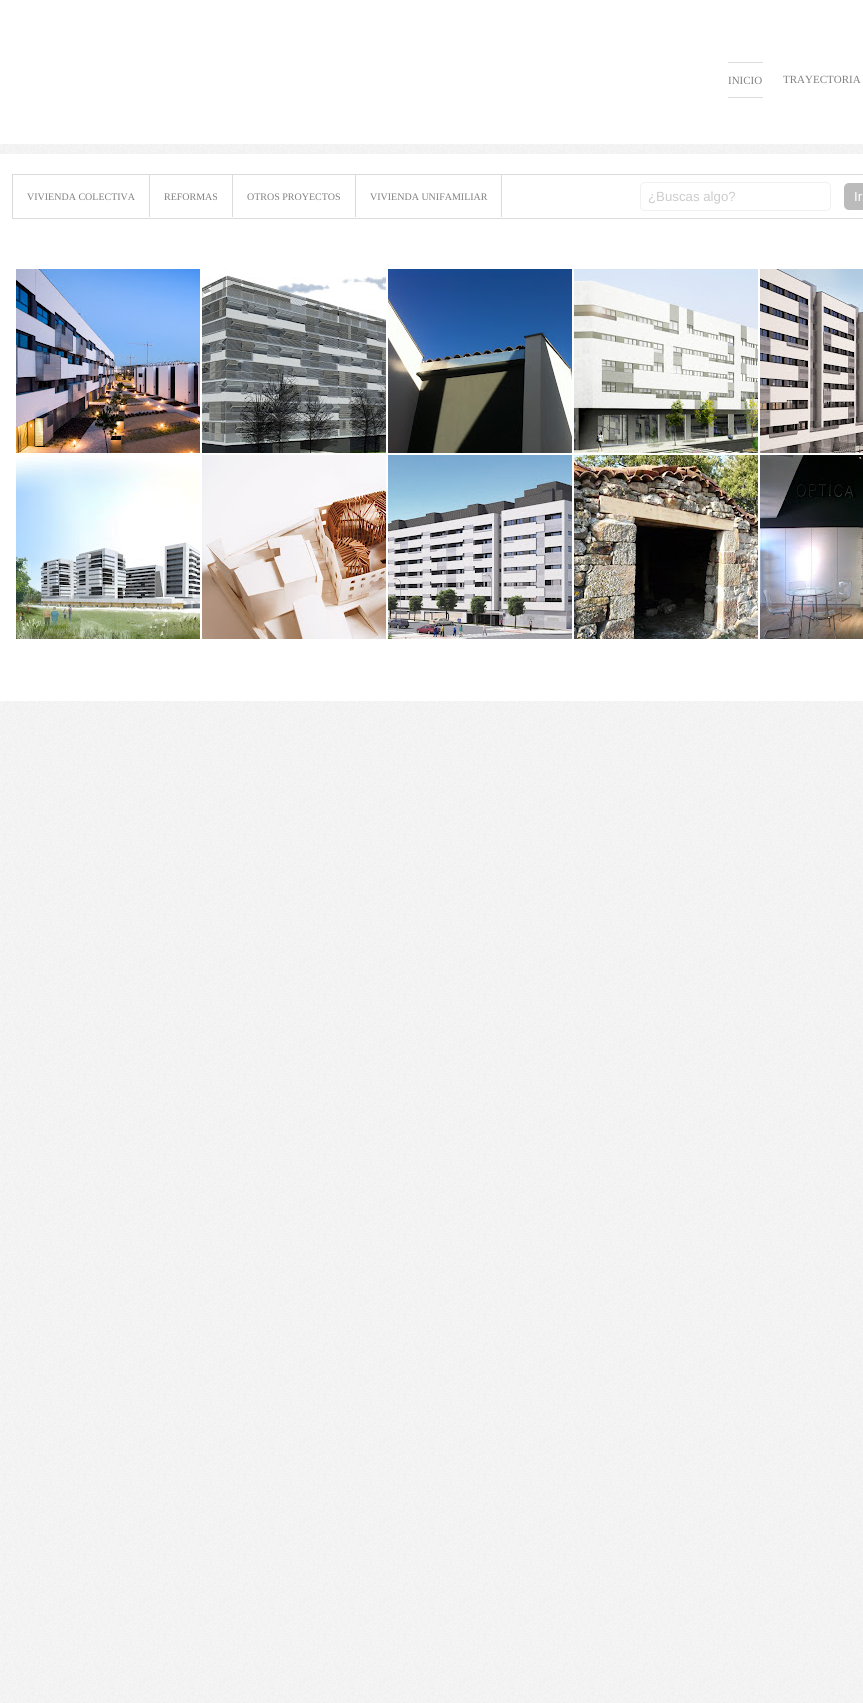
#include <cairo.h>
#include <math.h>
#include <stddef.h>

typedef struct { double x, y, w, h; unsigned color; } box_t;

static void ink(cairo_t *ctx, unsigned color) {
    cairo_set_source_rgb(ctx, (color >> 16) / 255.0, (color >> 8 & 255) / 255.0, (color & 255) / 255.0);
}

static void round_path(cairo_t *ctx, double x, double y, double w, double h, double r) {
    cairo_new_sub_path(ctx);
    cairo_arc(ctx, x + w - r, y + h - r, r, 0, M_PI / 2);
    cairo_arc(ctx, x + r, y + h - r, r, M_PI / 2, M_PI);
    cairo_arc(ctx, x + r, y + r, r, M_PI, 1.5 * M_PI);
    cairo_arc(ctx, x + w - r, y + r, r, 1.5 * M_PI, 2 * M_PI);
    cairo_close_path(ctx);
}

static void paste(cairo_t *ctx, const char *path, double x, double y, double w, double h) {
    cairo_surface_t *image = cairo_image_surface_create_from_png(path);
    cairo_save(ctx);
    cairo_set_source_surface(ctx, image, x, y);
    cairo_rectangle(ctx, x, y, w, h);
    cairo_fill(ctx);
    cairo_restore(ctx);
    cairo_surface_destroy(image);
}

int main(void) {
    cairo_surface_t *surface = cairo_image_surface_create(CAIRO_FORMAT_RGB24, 863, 1703);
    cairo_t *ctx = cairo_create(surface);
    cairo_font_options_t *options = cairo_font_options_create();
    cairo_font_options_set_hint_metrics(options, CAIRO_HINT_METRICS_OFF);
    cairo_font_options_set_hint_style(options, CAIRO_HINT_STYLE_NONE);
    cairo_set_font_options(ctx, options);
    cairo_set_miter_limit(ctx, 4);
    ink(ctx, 0xFFFFFF);
    cairo_paint(ctx);
    paste(ctx, "media/1.png", 0, 144, 863, 1559);
    ink(ctx, 0xDDDDDD);
    cairo_rectangle(ctx, 728, 62, 35, 1);
    cairo_fill(ctx);
    cairo_rectangle(ctx, 728, 97, 35, 1);
    cairo_fill(ctx);
    cairo_select_font_face(ctx, "Liberation Serif", CAIRO_FONT_SLANT_NORMAL, CAIRO_FONT_WEIGHT_NORMAL);
    cairo_set_font_size(ctx, 11);
    ink(ctx, 0x808080);
    cairo_move_to(ctx, 728, 84);
    cairo_show_text(ctx, "INICIO");
    cairo_move_to(ctx, 783, 83);
    cairo_show_text(ctx, "TRAYECTORIA");
    {
        static const box_t items[] = {
            {0, 154, 863, 547, 0xFFFFFF},
            {12, 174, 851, 1, 0xDBDBDB},
            {12, 218, 851, 1, 0xDBDBDB},
            {12, 174, 1, 45, 0xDBDBDB},
            {149, 175, 1, 42, 0xDBDBDB},
        };
        for (size_t i = 0; i < sizeof items / sizeof *items; i++) {
            ink(ctx, items[i].color);
            cairo_rectangle(ctx, items[i].x, items[i].y, items[i].w, items[i].h);
            cairo_fill(ctx);
        }
    }
    cairo_set_font_size(ctx, 10);
    ink(ctx, 0x808080);
    cairo_move_to(ctx, 27, 200);
    cairo_show_text(ctx, "VIVIENDA COLECTIVA");
    ink(ctx, 0xDBDBDB);
    cairo_rectangle(ctx, 232, 175, 1, 42);
    cairo_fill(ctx);
    ink(ctx, 0x808080);
    cairo_move_to(ctx, 164, 200);
    cairo_show_text(ctx, "REFORMAS");
    ink(ctx, 0xDBDBDB);
    cairo_rectangle(ctx, 355, 175, 1, 42);
    cairo_fill(ctx);
    ink(ctx, 0x808080);
    cairo_move_to(ctx, 247, 200);
    cairo_show_text(ctx, "OTROS PROYECTOS");
    ink(ctx, 0xDBDBDB);
    cairo_rectangle(ctx, 501, 175, 1, 42);
    cairo_fill(ctx);
    ink(ctx, 0x808080);
    cairo_move_to(ctx, 370, 200);
    cairo_show_text(ctx, "VIVIENDA UNIFAMILIAR");
    round_path(ctx, 640.5, 182.5, 190, 28, 4.5);
    ink(ctx, 0xF1F1F1);
    cairo_set_line_width(ctx, 1);
    cairo_stroke(ctx);
    cairo_select_font_face(ctx, "Liberation Sans", CAIRO_FONT_SLANT_NORMAL, CAIRO_FONT_WEIGHT_NORMAL);
    cairo_set_font_size(ctx, 13.25);
    ink(ctx, 0xCCCCCC);
    cairo_move_to(ctx, 648, 201);
    cairo_show_text(ctx, "¿Buscas algo?");
    ink(ctx, 0xBBBBBB);
    round_path(ctx, 844, 183, 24, 27, 5);
    cairo_fill(ctx);
    ink(ctx, 0xFFFFFF);
    cairo_move_to(ctx, 854, 201);
    cairo_show_text(ctx, "Ir");
    paste(ctx, "media/2.png", 16, 269, 184, 184);
    paste(ctx, "media/3.png", 202, 269, 184, 184);
    paste(ctx, "media/4.png", 388, 269, 184, 184);
    paste(ctx, "media/5.png", 574, 269, 184, 184);
    paste(ctx, "media/6.png", 760, 269, 103, 184);
    paste(ctx, "media/7.png", 16, 455, 184, 184);
    paste(ctx, "media/8.png", 202, 455, 184, 184);
    paste(ctx, "media/9.png", 388, 455, 184, 184);
    paste(ctx, "media/10.png", 574, 455, 184, 184);
    paste(ctx, "media/11.png", 760, 455, 103, 184);
    cairo_surface_write_to_png(surface, "image.png");
    cairo_font_options_destroy(options);
    cairo_destroy(ctx);
    cairo_surface_destroy(surface);
    return 0;
}
